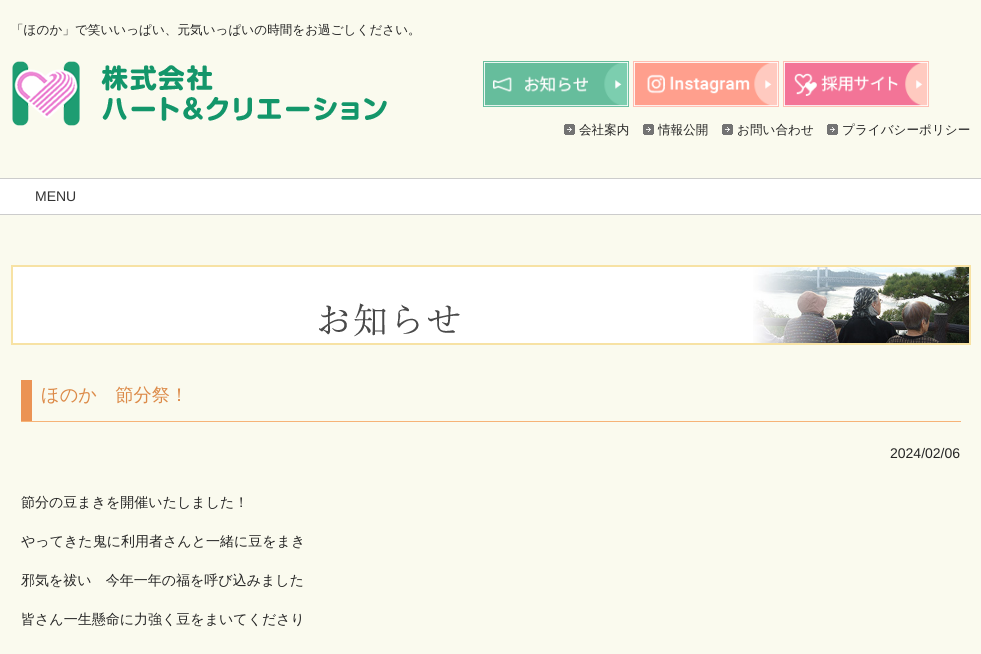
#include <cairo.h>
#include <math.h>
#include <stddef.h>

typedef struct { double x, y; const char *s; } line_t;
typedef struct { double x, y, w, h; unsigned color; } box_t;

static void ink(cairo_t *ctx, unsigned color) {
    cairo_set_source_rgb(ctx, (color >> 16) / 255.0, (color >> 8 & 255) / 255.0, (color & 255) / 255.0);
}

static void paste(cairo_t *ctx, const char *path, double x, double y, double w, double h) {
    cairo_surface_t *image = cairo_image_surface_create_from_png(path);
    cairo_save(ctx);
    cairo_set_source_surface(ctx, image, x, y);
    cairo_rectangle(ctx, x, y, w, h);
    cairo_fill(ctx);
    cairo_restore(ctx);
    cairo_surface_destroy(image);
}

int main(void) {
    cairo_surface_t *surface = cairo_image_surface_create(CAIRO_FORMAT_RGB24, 981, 654);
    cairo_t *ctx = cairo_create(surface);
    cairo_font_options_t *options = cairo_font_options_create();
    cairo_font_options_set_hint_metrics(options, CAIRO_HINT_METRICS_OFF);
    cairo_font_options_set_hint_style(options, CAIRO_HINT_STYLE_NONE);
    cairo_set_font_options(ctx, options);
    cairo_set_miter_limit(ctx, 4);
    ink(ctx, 0xFAFAEE);
    cairo_paint(ctx);
    cairo_select_font_face(ctx, "WenQuanYi Zen Hei Medium", CAIRO_FONT_SLANT_NORMAL, CAIRO_FONT_WEIGHT_NORMAL);
    cairo_set_font_size(ctx, 12.6);
    ink(ctx, 0x252525);
    cairo_move_to(ctx, 11, 34);
    cairo_show_text(ctx, "「ほのか」で笑いいっぱい、元気いっぱいの時間をお過ごしください。");
    paste(ctx, "media/1.png", 12, 61, 375, 65);
    paste(ctx, "media/2.png", 483, 61, 146, 46);
    paste(ctx, "media/3.png", 633, 61, 146, 46);
    paste(ctx, "media/4.png", 783, 61, 146, 46);
    paste(ctx, "media/5.png", 564, 124, 11, 11);
    cairo_move_to(ctx, 579, 134);
    cairo_show_text(ctx, "会社案内");
    paste(ctx, "media/5.png", 643, 124, 11, 11);
    cairo_move_to(ctx, 658, 134);
    cairo_show_text(ctx, "情報公開");
    paste(ctx, "media/5.png", 722, 124, 11, 11);
    cairo_move_to(ctx, 737, 134);
    cairo_show_text(ctx, "お問い合わせ");
    paste(ctx, "media/5.png", 827, 124, 11, 11);
    cairo_move_to(ctx, 842, 134);
    cairo_show_text(ctx, "プライバシーポリシー");
    {
        static const box_t items[] = {
            {0, 178, 981, 1, 0xCCCCCC},
            {0, 214, 981, 1, 0xCCCCCC},
            {0, 179, 981, 35, 0xFFFFFF},
        };
        for (size_t i = 0; i < sizeof items / sizeof *items; i++) {
            ink(ctx, items[i].color);
            cairo_rectangle(ctx, items[i].x, items[i].y, items[i].w, items[i].h);
            cairo_fill(ctx);
        }
    }
    cairo_select_font_face(ctx, "Liberation Sans", CAIRO_FONT_SLANT_NORMAL, CAIRO_FONT_WEIGHT_NORMAL);
    cairo_set_font_size(ctx, 14);
    ink(ctx, 0x333333);
    cairo_move_to(ctx, 35, 201);
    cairo_show_text(ctx, "MENU");
    ink(ctx, 0xFFFFFF);
    cairo_rectangle(ctx, 13, 267, 740, 76);
    cairo_fill(ctx);
    paste(ctx, "media/6.png", 753, 267, 216, 76);
    cairo_rectangle(ctx, 12, 266, 958, 78);
    ink(ctx, 0xF7E2A4);
    cairo_stroke(ctx);
    paste(ctx, "media/7.png", 319, 303, 141, 34);
    ink(ctx, 0xEB9354);
    cairo_rectangle(ctx, 21, 380, 11, 41);
    cairo_fill(ctx);
    ink(ctx, 0xF6B377);
    cairo_rectangle(ctx, 21, 421, 940, 1);
    cairo_fill(ctx);
    cairo_select_font_face(ctx, "WenQuanYi Zen Hei Medium", CAIRO_FONT_SLANT_NORMAL, CAIRO_FONT_WEIGHT_NORMAL);
    cairo_set_font_size(ctx, 18.25);
    ink(ctx, 0xDC8A48);
    cairo_move_to(ctx, 41, 401);
    cairo_show_text(ctx, "ほのか　節分祭！");
    cairo_select_font_face(ctx, "Liberation Sans", CAIRO_FONT_SLANT_NORMAL, CAIRO_FONT_WEIGHT_NORMAL);
    cairo_set_font_size(ctx, 14);
    ink(ctx, 0x252525);
    cairo_move_to(ctx, 890, 458);
    cairo_show_text(ctx, "2024/02/06");
    cairo_select_font_face(ctx, "WenQuanYi Zen Hei Medium", CAIRO_FONT_SLANT_NORMAL, CAIRO_FONT_WEIGHT_NORMAL);
    {
        static const line_t items[] = {
            {21, 507, "節分の豆まきを開催いたしました！"},
            {21, 546, "やってきた鬼に利用者さんと一緒に豆をまき"},
            {21, 585, "邪気を祓い　今年一年の福を呼び込みました"},
            {21, 624, "皆さん一生懸命に力強く豆をまいてくださり"},
        };
        for (size_t i = 0; i < sizeof items / sizeof *items; i++) {
            cairo_move_to(ctx, items[i].x, items[i].y);
            cairo_show_text(ctx, items[i].s);
        }
    }
    cairo_surface_write_to_png(surface, "image.png");
    cairo_font_options_destroy(options);
    cairo_destroy(ctx);
    cairo_surface_destroy(surface);
    return 0;
}
